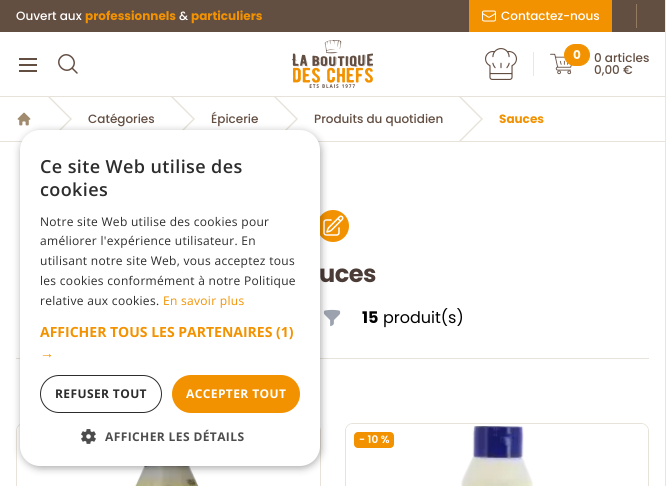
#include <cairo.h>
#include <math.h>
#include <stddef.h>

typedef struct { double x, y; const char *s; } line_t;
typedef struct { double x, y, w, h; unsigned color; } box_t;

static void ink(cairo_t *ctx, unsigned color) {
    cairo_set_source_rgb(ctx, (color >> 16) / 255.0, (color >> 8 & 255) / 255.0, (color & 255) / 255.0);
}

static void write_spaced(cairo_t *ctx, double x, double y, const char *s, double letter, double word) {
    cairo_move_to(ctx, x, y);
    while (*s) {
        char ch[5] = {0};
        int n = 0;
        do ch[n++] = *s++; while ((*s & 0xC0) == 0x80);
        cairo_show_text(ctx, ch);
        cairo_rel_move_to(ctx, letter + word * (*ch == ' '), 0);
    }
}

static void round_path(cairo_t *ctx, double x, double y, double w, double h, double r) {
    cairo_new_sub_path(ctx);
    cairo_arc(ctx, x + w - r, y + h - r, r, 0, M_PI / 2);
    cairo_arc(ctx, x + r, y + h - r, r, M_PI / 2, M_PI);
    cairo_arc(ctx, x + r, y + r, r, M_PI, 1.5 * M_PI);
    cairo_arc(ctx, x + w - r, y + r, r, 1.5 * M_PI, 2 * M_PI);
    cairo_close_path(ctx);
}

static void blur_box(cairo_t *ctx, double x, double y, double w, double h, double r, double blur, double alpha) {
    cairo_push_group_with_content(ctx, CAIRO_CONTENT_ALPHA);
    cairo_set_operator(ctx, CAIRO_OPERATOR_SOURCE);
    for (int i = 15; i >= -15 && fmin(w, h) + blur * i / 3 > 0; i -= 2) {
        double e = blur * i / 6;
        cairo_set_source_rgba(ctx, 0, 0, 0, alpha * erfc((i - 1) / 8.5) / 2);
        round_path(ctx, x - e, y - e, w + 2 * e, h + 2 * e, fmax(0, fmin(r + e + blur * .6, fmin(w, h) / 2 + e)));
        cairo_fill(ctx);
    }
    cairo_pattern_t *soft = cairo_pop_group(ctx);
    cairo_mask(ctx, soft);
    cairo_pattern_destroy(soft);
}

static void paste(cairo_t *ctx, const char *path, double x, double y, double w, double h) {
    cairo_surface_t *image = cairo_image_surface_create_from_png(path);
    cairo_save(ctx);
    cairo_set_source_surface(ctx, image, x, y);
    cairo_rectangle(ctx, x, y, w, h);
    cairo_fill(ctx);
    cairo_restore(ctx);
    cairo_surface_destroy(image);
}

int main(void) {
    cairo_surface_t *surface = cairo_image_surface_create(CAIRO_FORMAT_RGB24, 666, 486);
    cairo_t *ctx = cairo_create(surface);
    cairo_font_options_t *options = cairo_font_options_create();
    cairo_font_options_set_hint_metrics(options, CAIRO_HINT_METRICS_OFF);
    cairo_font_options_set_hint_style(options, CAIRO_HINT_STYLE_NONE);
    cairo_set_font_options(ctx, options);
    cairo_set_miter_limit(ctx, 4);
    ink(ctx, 0xFFFFFF);
    cairo_paint(ctx);
    ink(ctx, 0xE6E6E6);
    cairo_rectangle(ctx, 665, 0, 1, 486);
    cairo_fill(ctx);
    ink(ctx, 0x634E42);
    cairo_rectangle(ctx, 0, 0, 665, 32);
    cairo_fill(ctx);
    cairo_select_font_face(ctx, "Poppins Medium", CAIRO_FONT_SLANT_NORMAL, CAIRO_FONT_WEIGHT_NORMAL);
    cairo_set_font_size(ctx, 12);
    ink(ctx, 0xFFFFFF);
    cairo_move_to(ctx, 16, 20);
    cairo_show_text(ctx, "Ouvert aux");
    cairo_select_font_face(ctx, "Poppins", CAIRO_FONT_SLANT_NORMAL, CAIRO_FONT_WEIGHT_BOLD);
    ink(ctx, 0xF39200);
    cairo_move_to(ctx, 85, 20);
    cairo_show_text(ctx, "professionnels");
    cairo_select_font_face(ctx, "Poppins Medium", CAIRO_FONT_SLANT_NORMAL, CAIRO_FONT_WEIGHT_NORMAL);
    ink(ctx, 0xFFFFFF);
    cairo_move_to(ctx, 179, 20);
    cairo_show_text(ctx, "&");
    cairo_select_font_face(ctx, "Poppins", CAIRO_FONT_SLANT_NORMAL, CAIRO_FONT_WEIGHT_BOLD);
    ink(ctx, 0xF39200);
    cairo_move_to(ctx, 191, 20);
    cairo_show_text(ctx, "particuliers");
    cairo_rectangle(ctx, 469, 0, 143, 32);
    cairo_fill(ctx);
    paste(ctx, "media/1.png", 482, 10, 14, 12);
    cairo_select_font_face(ctx, "Poppins Medium", CAIRO_FONT_SLANT_NORMAL, CAIRO_FONT_WEIGHT_NORMAL);
    ink(ctx, 0xFFFFFF);
    cairo_move_to(ctx, 501, 20);
    cairo_show_text(ctx, "Contactez-nous");
    {
        static const box_t items[] = {
            {636, 4, 1, 24, 0x927B60},
            {0, 96, 665, 1, 0xE7E3DA},
            {19, 58, 18, 2, 0x634E42},
            {19, 64, 18, 2, 0x634E42},
            {19, 70, 18, 2, 0x634E42},
        };
        for (size_t i = 0; i < sizeof items / sizeof *items; i++) {
            ink(ctx, items[i].color);
            cairo_rectangle(ctx, items[i].x, items[i].y, items[i].w, items[i].h);
            cairo_fill(ctx);
        }
    }
    cairo_new_path(ctx);
    cairo_move_to(ctx, 77, 73);
    cairo_line_to(ctx, 72, 68);
    cairo_move_to(ctx, 72, 68);
    cairo_curve_to(ctx, 79, 61, 68, 50, 61, 57);
    cairo_curve_to(ctx, 54, 64, 65, 75, 72, 68);
    cairo_close_path(ctx);
    cairo_set_line_width(ctx, 1.5);
    cairo_set_line_cap(ctx, CAIRO_LINE_CAP_ROUND);
    cairo_set_line_join(ctx, CAIRO_LINE_JOIN_ROUND);
    cairo_stroke(ctx);
    paste(ctx, "media/2.png", 292, 40, 81, 48);
    paste(ctx, "media/3.png", 485, 48, 32, 32);
    ink(ctx, 0xE5E7EB);
    cairo_rectangle(ctx, 533, 52, 1, 24);
    cairo_fill(ctx);
    paste(ctx, "media/4.png", 550, 53, 22, 22);
    ink(ctx, 0xF39200);
    round_path(ctx, 564.5, 44.5, 25, 21, 10.5);
    cairo_fill_preserve(ctx);
    cairo_set_line_width(ctx, 1);
    cairo_set_line_cap(ctx, CAIRO_LINE_CAP_BUTT);
    cairo_set_line_join(ctx, CAIRO_LINE_JOIN_MITER);
    cairo_stroke(ctx);
    cairo_select_font_face(ctx, "Poppins", CAIRO_FONT_SLANT_NORMAL, CAIRO_FONT_WEIGHT_BOLD);
    ink(ctx, 0xFFFBEA);
    cairo_move_to(ctx, 573, 59);
    cairo_show_text(ctx, "0");
    cairo_select_font_face(ctx, "Poppins Medium", CAIRO_FONT_SLANT_NORMAL, CAIRO_FONT_WEIGHT_NORMAL);
    ink(ctx, 0x634E42);
    cairo_move_to(ctx, 594, 62);
    cairo_show_text(ctx, "0 articles");
    cairo_move_to(ctx, 594, 74);
    cairo_show_text(ctx, "0,00 €");
    ink(ctx, 0xE7E3DA);
    cairo_rectangle(ctx, 0, 141, 665, 1);
    cairo_fill(ctx);
    paste(ctx, "media/5.png", 17, 112, 14, 14);
    cairo_new_path(ctx);
    cairo_move_to(ctx, 48, 97);
    cairo_line_to(ctx, 70, 119);
    cairo_line_to(ctx, 48, 141);
    cairo_line_to(ctx, 50, 141);
    cairo_line_to(ctx, 72, 119);
    cairo_line_to(ctx, 50, 97);
    cairo_close_path(ctx);
    cairo_fill(ctx);
    ink(ctx, 0x634E42);
    cairo_move_to(ctx, 88, 123);
    cairo_show_text(ctx, "Catégories");
    ink(ctx, 0xE7E3DA);
    cairo_new_path(ctx);
    cairo_move_to(ctx, 171, 97);
    cairo_line_to(ctx, 193, 119);
    cairo_line_to(ctx, 171, 141);
    cairo_line_to(ctx, 173, 141);
    cairo_line_to(ctx, 195, 119);
    cairo_line_to(ctx, 173, 97);
    cairo_close_path(ctx);
    cairo_fill(ctx);
    ink(ctx, 0x634E42);
    cairo_move_to(ctx, 211, 123);
    cairo_show_text(ctx, "Épicerie");
    ink(ctx, 0xE7E3DA);
    cairo_new_path(ctx);
    cairo_move_to(ctx, 274, 97);
    cairo_line_to(ctx, 296, 119);
    cairo_line_to(ctx, 274, 141);
    cairo_line_to(ctx, 276, 141);
    cairo_line_to(ctx, 298, 119);
    cairo_line_to(ctx, 276, 97);
    cairo_close_path(ctx);
    cairo_fill(ctx);
    ink(ctx, 0x634E42);
    cairo_move_to(ctx, 314, 123);
    cairo_show_text(ctx, "Produits du quotidien");
    ink(ctx, 0xE7E3DA);
    cairo_new_path(ctx);
    cairo_move_to(ctx, 459, 97);
    cairo_line_to(ctx, 481, 119);
    cairo_line_to(ctx, 459, 141);
    cairo_line_to(ctx, 461, 141);
    cairo_line_to(ctx, 483, 119);
    cairo_line_to(ctx, 461, 97);
    cairo_close_path(ctx);
    cairo_fill(ctx);
    cairo_select_font_face(ctx, "Poppins", CAIRO_FONT_SLANT_NORMAL, CAIRO_FONT_WEIGHT_BOLD);
    ink(ctx, 0xF39200);
    cairo_move_to(ctx, 499, 123);
    cairo_show_text(ctx, "Sauces");
    ink(ctx, 0xE7E3DA);
    cairo_rectangle(ctx, 16, 358, 633, 1);
    cairo_fill(ctx);
    ink(ctx, 0xF39200);
    cairo_arc(ctx, 333, 226, 16, 0, 2 * M_PI);
    cairo_fill(ctx);
    paste(ctx, "media/6.png", 323, 215, 21, 21);
    cairo_set_font_size(ctx, 24);
    ink(ctx, 0x4C3C37);
    write_spaced(ctx, 319, 282, "uces", -0.5, 0);
    paste(ctx, "media/7.png", 323, 309, 18, 18);
    cairo_set_font_size(ctx, 16);
    ink(ctx, 0x000000);
    cairo_move_to(ctx, 362, 323);
    cairo_show_text(ctx, "15");
    cairo_select_font_face(ctx, "Poppins", CAIRO_FONT_SLANT_NORMAL, CAIRO_FONT_WEIGHT_NORMAL);
    cairo_move_to(ctx, 383, 323);
    cairo_show_text(ctx, "produit(s)");
    round_path(ctx, 16.5, 423.5, 304, 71, 7.5);
    ink(ctx, 0xE7E3DA);
    cairo_stroke(ctx);
    ink(ctx, 0xFFFFFF);
    cairo_new_path(ctx);
    cairo_move_to(ctx, 24, 424);
    cairo_line_to(ctx, 313, 424);
    cairo_curve_to(ctx, 317, 424, 320, 427, 320, 431);
    cairo_line_to(ctx, 320, 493);
    cairo_line_to(ctx, 17, 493);
    cairo_line_to(ctx, 17, 431);
    cairo_curve_to(ctx, 17, 427, 20, 424, 24, 424);
    cairo_close_path(ctx);
    cairo_fill(ctx);
    paste(ctx, "media/8.png", 135, 466, 64, 20);
    round_path(ctx, 345.5, 423.5, 303, 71, 7.5);
    ink(ctx, 0xE7E3DA);
    cairo_stroke(ctx);
    ink(ctx, 0xFFFFFF);
    cairo_new_path(ctx);
    cairo_move_to(ctx, 353, 424);
    cairo_line_to(ctx, 641, 424);
    cairo_curve_to(ctx, 645, 424, 648, 427, 648, 431);
    cairo_line_to(ctx, 648, 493);
    cairo_line_to(ctx, 346, 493);
    cairo_line_to(ctx, 346, 431);
    cairo_curve_to(ctx, 346, 427, 349, 424, 353, 424);
    cairo_close_path(ctx);
    cairo_fill(ctx);
    ink(ctx, 0xF39200);
    round_path(ctx, 354, 432, 40, 16, 4);
    cairo_fill(ctx);
    cairo_select_font_face(ctx, "Poppins SemiBold", CAIRO_FONT_SLANT_NORMAL, CAIRO_FONT_WEIGHT_NORMAL);
    cairo_set_font_size(ctx, 10.5);
    ink(ctx, 0xFFFFFF);
    cairo_move_to(ctx, 359, 443);
    cairo_show_text(ctx, "- 10 %");
    paste(ctx, "media/9.png", 461, 426, 72, 60);
    ink(ctx, 0x000000);
    blur_box(ctx, 21, 132, 300, 336, 20, 4, 0.35);
    ink(ctx, 0xFFFFFF);
    round_path(ctx, 20, 130, 300, 336, 20);
    cairo_fill(ctx);
    cairo_select_font_face(ctx, "Open Sans SemiBold", CAIRO_FONT_SLANT_NORMAL, CAIRO_FONT_WEIGHT_NORMAL);
    cairo_set_font_size(ctx, 18);
    ink(ctx, 0x2D2D2D);
    write_spaced(ctx, 40, 173, "Ce site Web utilise des", 0.4, 0);
    write_spaced(ctx, 40, 196, "cookies", 0.4, 0);
    cairo_select_font_face(ctx, "Open Sans", CAIRO_FONT_SLANT_NORMAL, CAIRO_FONT_WEIGHT_NORMAL);
    cairo_set_font_size(ctx, 12);
    {
        static const line_t items[] = {
            {40, 226, "Notre site Web utilise des cookies pour"},
            {40, 245, "améliorer l'expérience utilisateur. En"},
            {40, 265, "utilisant notre site Web, vous acceptez tous"},
            {40, 285, "les cookies conformément à notre Politique"},
            {40, 305, "relative aux cookies."},
        };
        for (size_t i = 0; i < sizeof items / sizeof *items; i++) {
            write_spaced(ctx, items[i].x, items[i].y, items[i].s, 0.3, 0);
        }
    }
    ink(ctx, 0xF39200);
    write_spaced(ctx, 163, 305, "En savoir plus", 0.3, 0);
    cairo_select_font_face(ctx, "Open Sans", CAIRO_FONT_SLANT_NORMAL, CAIRO_FONT_WEIGHT_BOLD);
    cairo_set_font_size(ctx, 14);
    cairo_move_to(ctx, 40, 337);
    cairo_show_text(ctx, "AFFICHER TOUS LES PARTENAIRES (1)");
    cairo_select_font_face(ctx, "Liberation Sans", CAIRO_FONT_SLANT_NORMAL, CAIRO_FONT_WEIGHT_BOLD);
    cairo_move_to(ctx, 40, 358);
    cairo_show_text(ctx, "→");
    round_path(ctx, 40.5, 375.5, 121, 37, 18.5);
    ink(ctx, 0x2D2D2D);
    cairo_stroke(ctx);
    cairo_select_font_face(ctx, "Open Sans", CAIRO_FONT_SLANT_NORMAL, CAIRO_FONT_WEIGHT_BOLD);
    cairo_set_font_size(ctx, 12);
    write_spaced(ctx, 55, 398, "REFUSER TOUT", 0.4, 0);
    ink(ctx, 0xF39200);
    round_path(ctx, 172, 375, 128, 38, 19);
    cairo_fill(ctx);
    ink(ctx, 0xFFFFFF);
    write_spaced(ctx, 186, 398, "ACCEPTER TOUT", 0.4, 0);
    paste(ctx, "media/10.png", 81, 429, 15, 15);
    ink(ctx, 0x4D4D4D);
    write_spaced(ctx, 105, 441, "AFFICHER LES DÉTAILS", 0.4, 0);
    cairo_surface_write_to_png(surface, "image.png");
    cairo_font_options_destroy(options);
    cairo_destroy(ctx);
    cairo_surface_destroy(surface);
    return 0;
}
